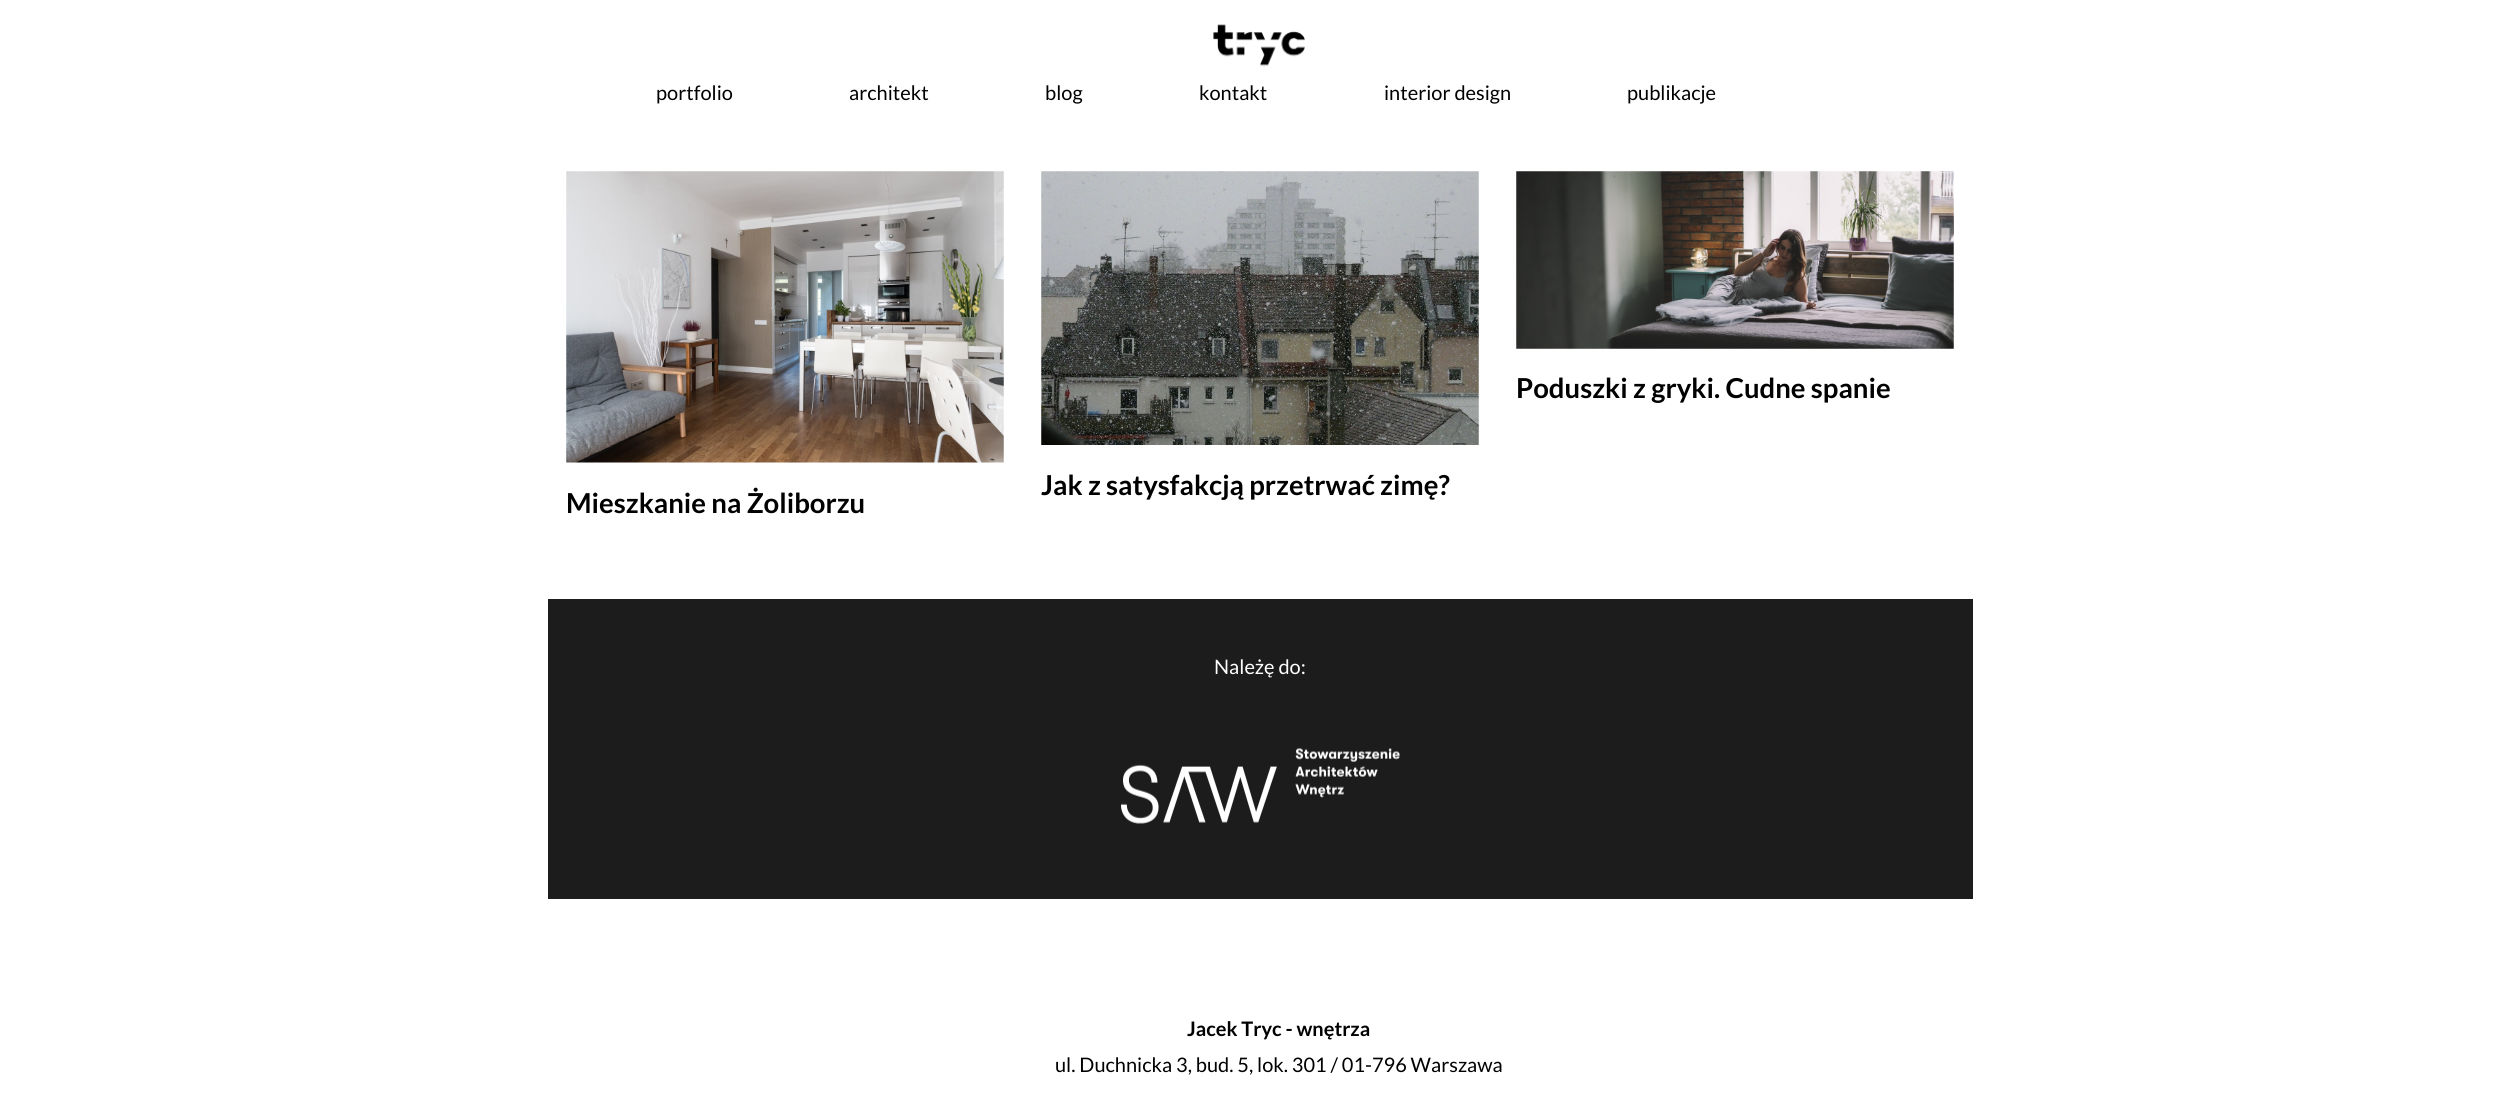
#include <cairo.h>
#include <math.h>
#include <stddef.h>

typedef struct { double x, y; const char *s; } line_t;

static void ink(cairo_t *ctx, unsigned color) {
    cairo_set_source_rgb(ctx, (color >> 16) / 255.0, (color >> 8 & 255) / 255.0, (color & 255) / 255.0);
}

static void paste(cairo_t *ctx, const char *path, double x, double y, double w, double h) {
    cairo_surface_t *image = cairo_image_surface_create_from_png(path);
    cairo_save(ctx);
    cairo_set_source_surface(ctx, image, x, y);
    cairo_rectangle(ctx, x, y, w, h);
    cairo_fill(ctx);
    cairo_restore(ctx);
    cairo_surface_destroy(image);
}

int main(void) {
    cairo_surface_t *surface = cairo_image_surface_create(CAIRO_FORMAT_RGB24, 2520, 1093);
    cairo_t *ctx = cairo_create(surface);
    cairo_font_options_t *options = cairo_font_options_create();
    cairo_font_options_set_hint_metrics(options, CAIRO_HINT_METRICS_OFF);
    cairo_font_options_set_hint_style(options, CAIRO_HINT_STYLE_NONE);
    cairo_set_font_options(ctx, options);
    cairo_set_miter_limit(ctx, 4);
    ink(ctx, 0xFFFFFF);
    cairo_paint(ctx);
    paste(ctx, "media/1.png", 1213, 24, 92, 43);
    cairo_select_font_face(ctx, "Lato", CAIRO_FONT_SLANT_NORMAL, CAIRO_FONT_WEIGHT_NORMAL);
    cairo_set_font_size(ctx, 20);
    ink(ctx, 0x000000);
    {
        static const line_t items[] = {
            {656, 100, "portfolio"},
            {849, 100, "architekt"},
            {1045, 100, "blog"},
            {1199, 100, "kontakt"},
            {1384, 100, "interior design"},
            {1627, 100, "publikacje"},
        };
        for (size_t i = 0; i < sizeof items / sizeof *items; i++) {
            cairo_move_to(ctx, items[i].x, items[i].y);
            cairo_show_text(ctx, items[i].s);
        }
    }
    paste(ctx, "media/2.png", 1516, 171, 438, 178);
    cairo_select_font_face(ctx, "Lato", CAIRO_FONT_SLANT_NORMAL, CAIRO_FONT_WEIGHT_BOLD);
    cairo_set_font_size(ctx, 27.5);
    cairo_move_to(ctx, 1516, 398);
    cairo_show_text(ctx, "Poduszki z gryki. Cudne spanie");
    paste(ctx, "media/3.png", 566, 171, 438, 292);
    cairo_move_to(ctx, 566, 513);
    cairo_show_text(ctx, "Mieszkanie na Żoliborzu");
    paste(ctx, "media/4.png", 1041, 171, 438, 274);
    cairo_move_to(ctx, 1041, 495);
    cairo_show_text(ctx, "Jak z satysfakcją przetrwać zimę?");
    ink(ctx, 0x1C1C1C);
    cairo_rectangle(ctx, 548, 599, 1425, 300);
    cairo_fill(ctx);
    cairo_select_font_face(ctx, "Lato", CAIRO_FONT_SLANT_NORMAL, CAIRO_FONT_WEIGHT_NORMAL);
    cairo_set_font_size(ctx, 20);
    ink(ctx, 0xFFFFFF);
    cairo_move_to(ctx, 1214, 674);
    cairo_show_text(ctx, "Należę do:");
    paste(ctx, "media/5.png", 1121, 748, 279, 76);
    cairo_select_font_face(ctx, "Lato", CAIRO_FONT_SLANT_NORMAL, CAIRO_FONT_WEIGHT_BOLD);
    ink(ctx, 0x000000);
    cairo_move_to(ctx, 1187, 1036);
    cairo_show_text(ctx, "Jacek Tryc - wnętrza");
    cairo_select_font_face(ctx, "Lato", CAIRO_FONT_SLANT_NORMAL, CAIRO_FONT_WEIGHT_NORMAL);
    cairo_move_to(ctx, 1055, 1072);
    cairo_show_text(ctx, "ul. Duchnicka 3, bud. 5, lok. 301 / 01-796 Warszawa");
    cairo_surface_write_to_png(surface, "image.png");
    cairo_font_options_destroy(options);
    cairo_destroy(ctx);
    cairo_surface_destroy(surface);
    return 0;
}
